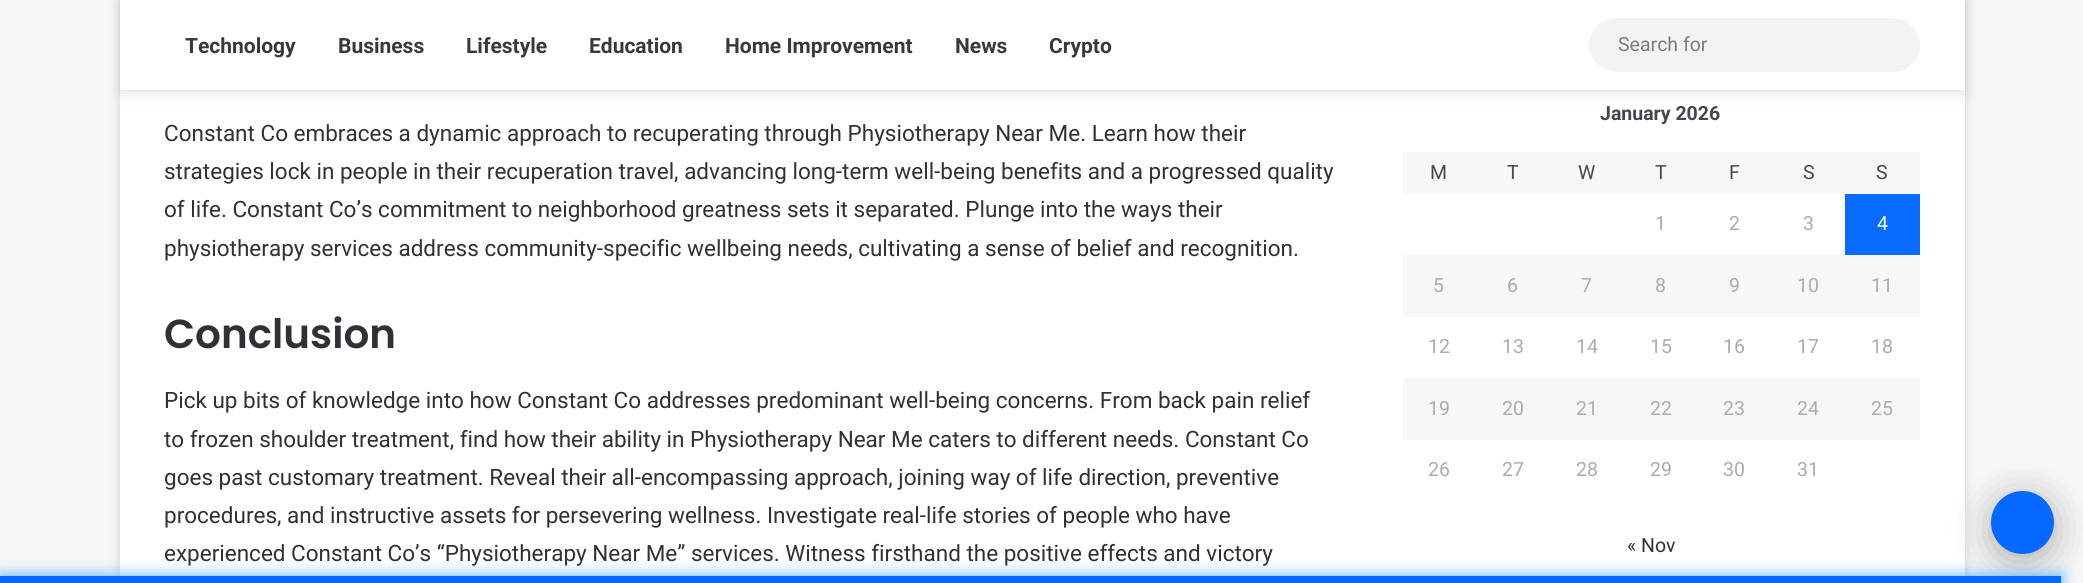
#include <cairo.h>
#include <math.h>
#include <stddef.h>

typedef struct { double x, y; const char *s; } line_t;

static void ink(cairo_t *ctx, unsigned color) {
    cairo_set_source_rgb(ctx, (color >> 16) / 255.0, (color >> 8 & 255) / 255.0, (color & 255) / 255.0);
}

static void round_path(cairo_t *ctx, double x, double y, double w, double h, double r) {
    cairo_new_sub_path(ctx);
    cairo_arc(ctx, x + w - r, y + h - r, r, 0, M_PI / 2);
    cairo_arc(ctx, x + r, y + h - r, r, M_PI / 2, M_PI);
    cairo_arc(ctx, x + r, y + r, r, M_PI, 1.5 * M_PI);
    cairo_arc(ctx, x + w - r, y + r, r, 1.5 * M_PI, 2 * M_PI);
    cairo_close_path(ctx);
}

static void blur_box(cairo_t *ctx, double x, double y, double w, double h, double r, double blur, double alpha) {
    cairo_push_group_with_content(ctx, CAIRO_CONTENT_ALPHA);
    cairo_set_operator(ctx, CAIRO_OPERATOR_SOURCE);
    for (int i = 15; i >= -15 && fmin(w, h) + blur * i / 3 > 0; i -= 2) {
        double e = blur * i / 6;
        cairo_set_source_rgba(ctx, 0, 0, 0, alpha * erfc((i - 1) / 8.5) / 2);
        round_path(ctx, x - e, y - e, w + 2 * e, h + 2 * e, fmax(0, fmin(r + e + blur * .6, fmin(w, h) / 2 + e)));
        cairo_fill(ctx);
    }
    cairo_pattern_t *soft = cairo_pop_group(ctx);
    cairo_mask(ctx, soft);
    cairo_pattern_destroy(soft);
}

int main(void) {
    cairo_surface_t *surface = cairo_image_surface_create(CAIRO_FORMAT_RGB24, 2083, 583);
    cairo_t *ctx = cairo_create(surface);
    cairo_font_options_t *options = cairo_font_options_create();
    cairo_font_options_set_hint_metrics(options, CAIRO_HINT_METRICS_OFF);
    cairo_font_options_set_hint_style(options, CAIRO_HINT_STYLE_NONE);
    cairo_set_font_options(ctx, options);
    cairo_set_miter_limit(ctx, 4);
    ink(ctx, 0xF7F7F7);
    cairo_paint(ctx);
    ink(ctx, 0xABABAB);
    blur_box(ctx, 120, -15, 1845, 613, 0, 5, 0.5);
    ink(ctx, 0xFFFFFF);
    cairo_rectangle(ctx, 120, 0, 1845, 576);
    cairo_fill(ctx);
    cairo_save(ctx);
    cairo_set_fill_rule(ctx, CAIRO_FILL_RULE_EVEN_ODD);
    cairo_new_path(ctx);
    cairo_move_to(ctx, 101, 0);
    cairo_line_to(ctx, 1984, 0);
    cairo_line_to(ctx, 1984, 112);
    cairo_line_to(ctx, 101, 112);
    cairo_close_path(ctx);
    cairo_move_to(ctx, 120, 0);
    cairo_line_to(ctx, 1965, 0);
    cairo_line_to(ctx, 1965, 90);
    cairo_line_to(ctx, 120, 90);
    cairo_close_path(ctx);
    cairo_clip(ctx);
    ink(ctx, 0x636363);
    blur_box(ctx, 120, 3, 1845, 90, 0, 6, 0.2);
    cairo_restore(ctx);
    cairo_select_font_face(ctx, "Roboto", CAIRO_FONT_SLANT_NORMAL, CAIRO_FONT_WEIGHT_BOLD);
    cairo_set_font_size(ctx, 21);
    ink(ctx, 0x37393E);
    {
        static const line_t items[] = {
            {185, 53, "Technology"},
            {338, 53, "Business"},
            {466, 53, "Lifestyle"},
            {589, 53, "Education"},
            {725, 53, "Home Improvement"},
            {955, 53, "News"},
            {1049, 53, "Crypto"},
        };
        for (size_t i = 0; i < sizeof items / sizeof *items; i++) {
            cairo_move_to(ctx, items[i].x, items[i].y);
            cairo_show_text(ctx, items[i].s);
        }
    }
    ink(ctx, 0xF3F3F3);
    round_path(ctx, 1589, 18, 331, 54, 27);
    cairo_fill(ctx);
    cairo_select_font_face(ctx, "Roboto", CAIRO_FONT_SLANT_NORMAL, CAIRO_FONT_WEIGHT_NORMAL);
    cairo_set_font_size(ctx, 19.5);
    ink(ctx, 0x7C7C7C);
    cairo_move_to(ctx, 1618, 51);
    cairo_show_text(ctx, "Search for");
    cairo_set_font_size(ctx, 22.5);
    ink(ctx, 0x2E3136);
    {
        static const line_t items[] = {
            {164, 141, "Constant Co embraces a dynamic approach to recuperating through Physiotherapy Near Me. Learn how their"},
            {164, 179, "strategies lock in people in their recuperation travel, advancing long-term well-being benefits and a progressed quality"},
            {164, 217, "of life. Constant Co’s commitment to neighborhood greatness sets it separated. Plunge into the ways their"},
            {164, 256, "physiotherapy services address community-specific wellbeing needs, cultivating a sense of belief and recognition."},
        };
        for (size_t i = 0; i < sizeof items / sizeof *items; i++) {
            cairo_move_to(ctx, items[i].x, items[i].y);
            cairo_show_text(ctx, items[i].s);
        }
    }
    cairo_select_font_face(ctx, "Poppins SemiBold", CAIRO_FONT_SLANT_NORMAL, CAIRO_FONT_WEIGHT_NORMAL);
    cairo_set_font_size(ctx, 40.5);
    cairo_move_to(ctx, 164, 348);
    cairo_show_text(ctx, "Conclusion");
    cairo_select_font_face(ctx, "Roboto", CAIRO_FONT_SLANT_NORMAL, CAIRO_FONT_WEIGHT_NORMAL);
    cairo_set_font_size(ctx, 22.5);
    {
        static const line_t items[] = {
            {164, 408, "Pick up bits of knowledge into how Constant Co addresses predominant well-being concerns. From back pain relief"},
            {164, 447, "to frozen shoulder treatment, find how their ability in Physiotherapy Near Me caters to different needs. Constant Co"},
            {164, 485, "goes past customary treatment. Reveal their all-encompassing approach, joining way of life direction, preventive"},
            {164, 523, "procedures, and instructive assets for persevering wellness. Investigate real-life stories of people who have"},
            {164, 561, "experienced Constant Co’s “Physiotherapy Near Me” services. Witness firsthand the positive effects and victory"},
        };
        for (size_t i = 0; i < sizeof items / sizeof *items; i++) {
            cairo_move_to(ctx, items[i].x, items[i].y);
            cairo_show_text(ctx, items[i].s);
        }
    }
    cairo_select_font_face(ctx, "Roboto", CAIRO_FONT_SLANT_NORMAL, CAIRO_FONT_WEIGHT_BOLD);
    cairo_set_font_size(ctx, 19.5);
    ink(ctx, 0x42484F);
    cairo_move_to(ctx, 1600, 120);
    cairo_show_text(ctx, "January 2026");
    ink(ctx, 0xF7F7F7);
    cairo_rectangle(ctx, 1403, 152, 517, 42);
    cairo_fill(ctx);
    cairo_select_font_face(ctx, "Roboto", CAIRO_FONT_SLANT_NORMAL, CAIRO_FONT_WEIGHT_NORMAL);
    ink(ctx, 0x42484F);
    {
        static const line_t items[] = {
            {1430, 179, "M"},
            {1507, 179, "T"},
            {1578, 179, "W"},
            {1655, 179, "T"},
            {1729, 179, "F"},
            {1803, 179, "S"},
            {1876, 179, "S"},
        };
        for (size_t i = 0; i < sizeof items / sizeof *items; i++) {
            cairo_move_to(ctx, items[i].x, items[i].y);
            cairo_show_text(ctx, items[i].s);
        }
    }
    ink(ctx, 0xABABAB);
    {
        static const line_t items[] = {
            {1655, 230, "1"},
            {1729, 230, "2"},
            {1803, 230, "3"},
        };
        for (size_t i = 0; i < sizeof items / sizeof *items; i++) {
            cairo_move_to(ctx, items[i].x, items[i].y);
            cairo_show_text(ctx, items[i].s);
        }
    }
    ink(ctx, 0x086BFF);
    cairo_rectangle(ctx, 1845, 194, 75, 61);
    cairo_fill(ctx);
    ink(ctx, 0xFFFFFF);
    cairo_move_to(ctx, 1877, 230);
    cairo_show_text(ctx, "4");
    ink(ctx, 0xF7F7F7);
    cairo_rectangle(ctx, 1403, 255, 517, 62);
    cairo_fill(ctx);
    ink(ctx, 0xABABAB);
    {
        static const line_t items[] = {
            {1433, 292, "5"},
            {1507, 292, "6"},
            {1581, 292, "7"},
            {1655, 292, "8"},
            {1729, 292, "9"},
            {1797, 292, "10"},
            {1871, 292, "11"},
            {1428, 353, "12"},
            {1502, 353, "13"},
            {1576, 353, "14"},
            {1650, 353, "15"},
            {1723, 353, "16"},
            {1797, 353, "17"},
            {1871, 353, "18"},
        };
        for (size_t i = 0; i < sizeof items / sizeof *items; i++) {
            cairo_move_to(ctx, items[i].x, items[i].y);
            cairo_show_text(ctx, items[i].s);
        }
    }
    ink(ctx, 0xF7F7F7);
    cairo_rectangle(ctx, 1403, 378, 517, 62);
    cairo_fill(ctx);
    ink(ctx, 0xABABAB);
    {
        static const line_t items[] = {
            {1428, 415, "19"},
            {1502, 415, "20"},
            {1576, 415, "21"},
            {1650, 415, "22"},
            {1723, 415, "23"},
            {1797, 415, "24"},
            {1871, 415, "25"},
            {1428, 476, "26"},
            {1502, 476, "27"},
            {1576, 476, "28"},
            {1650, 476, "29"},
            {1723, 476, "30"},
            {1797, 476, "31"},
        };
        for (size_t i = 0; i < sizeof items / sizeof *items; i++) {
            cairo_move_to(ctx, items[i].x, items[i].y);
            cairo_show_text(ctx, items[i].s);
        }
    }
    ink(ctx, 0x2E3136);
    cairo_move_to(ctx, 1627, 552);
    cairo_show_text(ctx, "« Nov");
    ink(ctx, 0x000000);
    blur_box(ctx, 1991, 498, 63, 63, 31.5, 19, 0.3);
    ink(ctx, 0x0669FF);
    cairo_arc(ctx, 2022.5, 522.5, 31.5, 0, 2 * M_PI);
    cairo_fill(ctx);
    ink(ctx, 0x0088FF);
    blur_box(ctx, 0, 576, 2061, 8, 0, 7.5, 0.7);
    ink(ctx, 0x0669FF);
    cairo_rectangle(ctx, 0, 576, 2061, 7);
    cairo_fill(ctx);
    cairo_surface_write_to_png(surface, "image.png");
    cairo_font_options_destroy(options);
    cairo_destroy(ctx);
    cairo_surface_destroy(surface);
    return 0;
}
